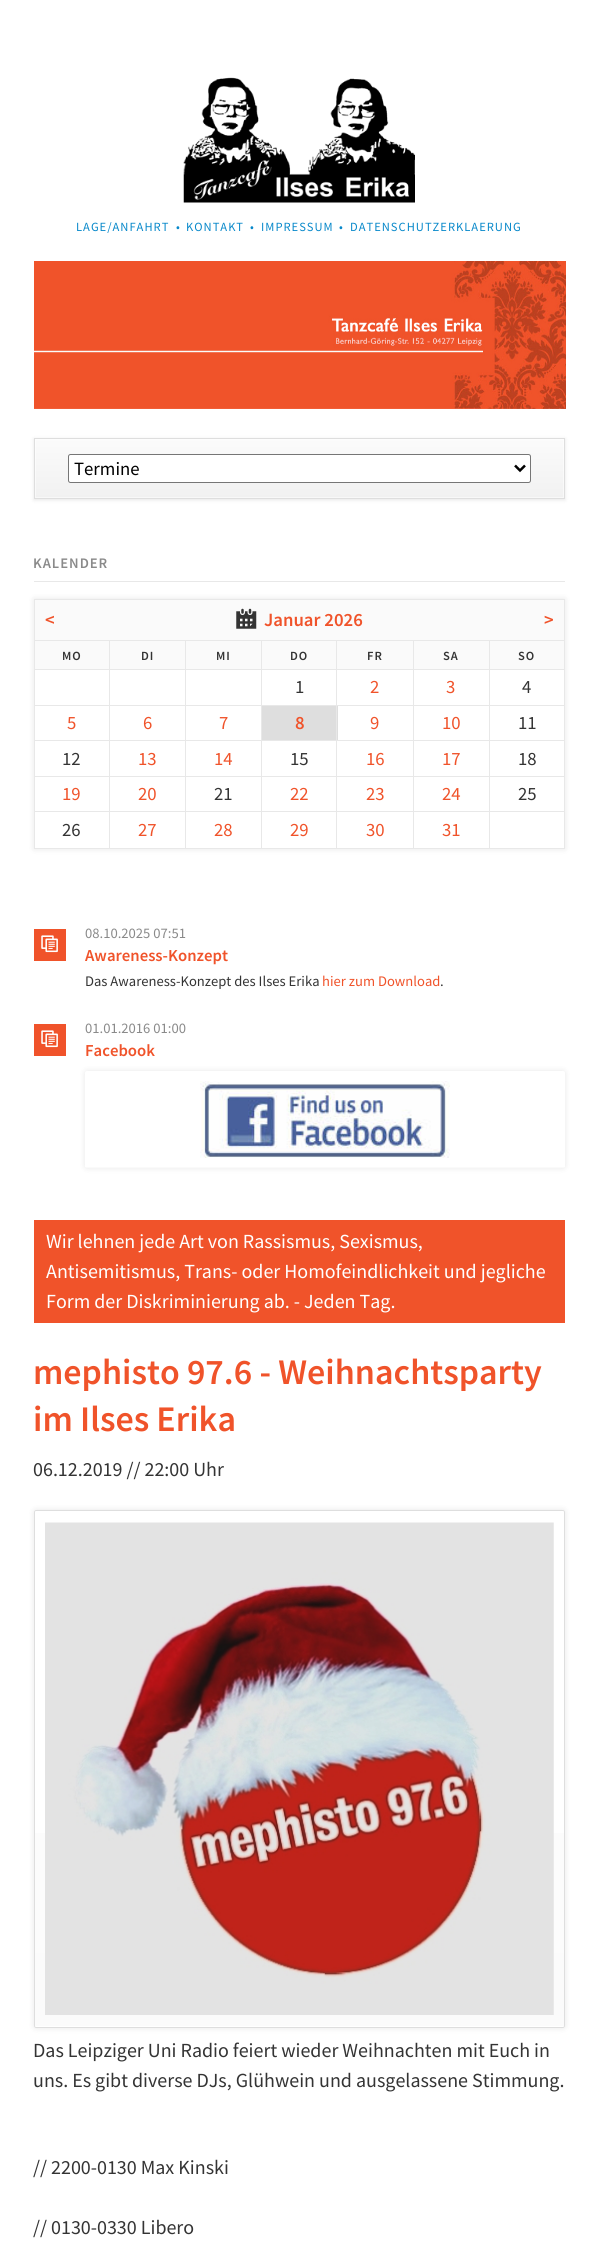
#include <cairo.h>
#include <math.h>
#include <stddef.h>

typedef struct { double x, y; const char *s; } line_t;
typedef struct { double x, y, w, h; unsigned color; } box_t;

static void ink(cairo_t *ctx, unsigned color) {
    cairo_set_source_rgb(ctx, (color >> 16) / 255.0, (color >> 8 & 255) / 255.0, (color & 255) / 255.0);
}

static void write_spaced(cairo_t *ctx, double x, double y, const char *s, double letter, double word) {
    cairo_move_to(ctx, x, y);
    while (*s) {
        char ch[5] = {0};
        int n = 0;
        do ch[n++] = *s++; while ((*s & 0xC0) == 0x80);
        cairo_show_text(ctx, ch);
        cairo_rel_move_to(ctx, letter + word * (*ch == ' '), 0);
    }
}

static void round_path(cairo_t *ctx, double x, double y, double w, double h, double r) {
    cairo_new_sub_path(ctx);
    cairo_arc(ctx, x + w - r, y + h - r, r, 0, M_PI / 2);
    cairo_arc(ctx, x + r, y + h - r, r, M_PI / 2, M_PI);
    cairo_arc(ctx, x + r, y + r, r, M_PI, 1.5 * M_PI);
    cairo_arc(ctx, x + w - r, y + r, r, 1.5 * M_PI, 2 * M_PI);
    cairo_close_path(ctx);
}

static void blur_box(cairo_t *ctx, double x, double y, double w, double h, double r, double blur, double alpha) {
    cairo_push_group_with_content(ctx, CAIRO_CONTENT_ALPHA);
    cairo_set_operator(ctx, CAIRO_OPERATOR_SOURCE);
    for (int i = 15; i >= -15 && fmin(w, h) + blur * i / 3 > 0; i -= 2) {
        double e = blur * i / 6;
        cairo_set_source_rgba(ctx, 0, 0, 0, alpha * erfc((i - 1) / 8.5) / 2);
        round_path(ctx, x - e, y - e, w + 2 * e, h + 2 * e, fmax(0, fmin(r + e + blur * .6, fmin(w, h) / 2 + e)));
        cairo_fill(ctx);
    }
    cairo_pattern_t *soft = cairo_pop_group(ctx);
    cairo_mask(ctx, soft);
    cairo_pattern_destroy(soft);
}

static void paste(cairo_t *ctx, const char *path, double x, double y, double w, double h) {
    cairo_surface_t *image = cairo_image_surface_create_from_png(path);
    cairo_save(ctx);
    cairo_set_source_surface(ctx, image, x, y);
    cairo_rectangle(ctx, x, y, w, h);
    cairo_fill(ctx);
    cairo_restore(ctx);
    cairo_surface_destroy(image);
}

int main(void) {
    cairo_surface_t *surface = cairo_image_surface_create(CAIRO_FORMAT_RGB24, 598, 2259);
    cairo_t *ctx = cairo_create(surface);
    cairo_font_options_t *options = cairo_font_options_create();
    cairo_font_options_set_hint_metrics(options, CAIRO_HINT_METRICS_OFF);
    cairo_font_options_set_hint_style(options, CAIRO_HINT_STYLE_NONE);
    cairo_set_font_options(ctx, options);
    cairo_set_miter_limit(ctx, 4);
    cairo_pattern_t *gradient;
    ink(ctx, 0xFFFFFF);
    cairo_paint(ctx);
    paste(ctx, "media/1.png", 183, 77, 232, 126);
    cairo_select_font_face(ctx, "Source Sans Pro", CAIRO_FONT_SLANT_NORMAL, CAIRO_FONT_WEIGHT_NORMAL);
    cairo_set_font_size(ctx, 12.5);
    ink(ctx, 0x0788CA);
    {
        static const line_t items[] = {
            {76, 231, "LAGE/ANFAHRT"},
            {176, 231, "•"},
            {186, 231, "KONTAKT"},
            {250, 231, "•"},
            {261, 231, "IMPRESSUM"},
            {339, 231, "•"},
            {350, 231, "DATENSCHUTZERKLAERUNG"},
        };
        for (size_t i = 0; i < sizeof items / sizeof *items; i++) {
            write_spaced(ctx, items[i].x, items[i].y, items[i].s, 1, 0);
        }
    }
    paste(ctx, "media/2.png", 34, 261, 532, 148);
    ink(ctx, 0x000000);
    blur_box(ctx, 34, 439, 531, 61, 0, 2, 0.1);
    gradient = cairo_pattern_create_linear(299, 439, 299, 498);
    cairo_pattern_add_color_stop_rgba(gradient, 0, 0.984, 0.984, 0.984, 1);
    cairo_pattern_add_color_stop_rgba(gradient, 1, 0.945, 0.945, 0.945, 1);
    cairo_set_source(ctx, gradient);
    cairo_pattern_destroy(gradient);
    cairo_rectangle(ctx, 35, 439, 529, 59);
    cairo_fill(ctx);
    cairo_rectangle(ctx, 35.5, 439.5, 528, 58);
    cairo_set_source_rgba(ctx, 1, 1, 1, 0.5);
    cairo_set_line_width(ctx, 1);
    cairo_stroke(ctx);
    cairo_rectangle(ctx, 34.5, 438.5, 530, 60);
    ink(ctx, 0xDEDEDE);
    cairo_stroke(ctx);
    ink(ctx, 0xFFFFFF);
    round_path(ctx, 68.5, 454.5, 462, 28, 2);
    cairo_fill_preserve(ctx);
    ink(ctx, 0x767676);
    cairo_stroke(ctx);
    cairo_new_path(ctx);
    cairo_move_to(ctx, 515, 465.5);
    cairo_line_to(ctx, 520, 470.5);
    cairo_line_to(ctx, 525, 465.5);
    ink(ctx, 0x000000);
    cairo_set_line_width(ctx, 2.5);
    cairo_stroke(ctx);
    cairo_set_font_size(ctx, 18.75);
    cairo_move_to(ctx, 74, 475);
    cairo_show_text(ctx, "Termine");
    ink(ctx, 0xE8E8E8);
    cairo_rectangle(ctx, 34, 581, 531, 1);
    cairo_fill(ctx);
    cairo_select_font_face(ctx, "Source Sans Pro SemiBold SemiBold", CAIRO_FONT_SLANT_NORMAL, CAIRO_FONT_WEIGHT_NORMAL);
    cairo_set_font_size(ctx, 14.6);
    ink(ctx, 0x8A8A8A);
    write_spaced(ctx, 33, 568, "KALENDER", 1, 0);
    cairo_save(ctx);
    cairo_set_fill_rule(ctx, CAIRO_FILL_RULE_EVEN_ODD);
    cairo_new_path(ctx);
    cairo_move_to(ctx, 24, 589);
    cairo_line_to(ctx, 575, 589);
    cairo_line_to(ctx, 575, 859);
    cairo_line_to(ctx, 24, 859);
    cairo_close_path(ctx);
    cairo_move_to(ctx, 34, 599);
    cairo_line_to(ctx, 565, 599);
    cairo_line_to(ctx, 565, 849);
    cairo_line_to(ctx, 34, 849);
    cairo_close_path(ctx);
    cairo_clip(ctx);
    ink(ctx, 0x000000);
    blur_box(ctx, 34, 599, 531, 250, 0, 3, 0.1);
    cairo_restore(ctx);
    {
        static const box_t items[] = {
            {35, 600, 529, 40, 0xFAFAFA},
            {34, 599, 531, 1, 0xE8E8E8},
            {489, 640, 76, 1, 0xE8E8E8},
            {489, 669, 76, 1, 0xE8E8E8},
            {489, 705, 76, 1, 0xE8E8E8},
            {489, 740, 76, 1, 0xE8E8E8},
            {489, 776, 76, 1, 0xE8E8E8},
            {489, 811, 76, 1, 0xE8E8E8},
            {564, 811, 1, 38, 0xE8E8E8},
            {489, 848, 76, 1, 0xE8E8E8},
            {489, 811, 1, 38, 0xE8E8E8},
            {413, 811, 77, 1, 0xE8E8E8},
            {489, 776, 1, 37, 0xE8E8E8},
            {413, 776, 77, 1, 0xE8E8E8},
            {489, 740, 1, 38, 0xE8E8E8},
            {413, 740, 77, 1, 0xE8E8E8},
            {489, 705, 1, 36, 0xE8E8E8},
            {413, 705, 77, 1, 0xE8E8E8},
            {489, 669, 1, 37, 0xE8E8E8},
            {413, 669, 77, 1, 0xE8E8E8},
            {489, 640, 1, 30, 0xE8E8E8},
            {413, 640, 77, 1, 0xE8E8E8},
            {413, 848, 77, 1, 0xE8E8E8},
            {413, 811, 1, 38, 0xE8E8E8},
            {336, 811, 78, 1, 0xE8E8E8},
            {413, 776, 1, 37, 0xE8E8E8},
            {336, 776, 78, 1, 0xE8E8E8},
            {413, 740, 1, 38, 0xE8E8E8},
            {336, 740, 78, 1, 0xE8E8E8},
            {413, 705, 1, 36, 0xE8E8E8},
            {336, 705, 78, 1, 0xE8E8E8},
            {413, 669, 1, 37, 0xE8E8E8},
            {336, 669, 78, 1, 0xE8E8E8},
            {413, 640, 1, 30, 0xE8E8E8},
            {336, 640, 78, 1, 0xE8E8E8},
            {262, 641, 151, 28, 0xFAFAFA},
            {262, 706, 76, 34, 0xDEDEDE},
            {336, 848, 78, 1, 0xE8E8E8},
            {336, 811, 1, 38, 0xE8E8E8},
            {261, 811, 77, 1, 0xE8E8E8},
            {336, 776, 1, 37, 0xE8E8E8},
            {261, 776, 77, 1, 0xE8E8E8},
            {336, 740, 1, 38, 0xE8E8E8},
            {261, 740, 77, 1, 0xE8E8E8},
            {336, 705, 1, 36, 0xE8E8E8},
            {261, 705, 77, 1, 0xE8E8E8},
            {336, 669, 1, 37, 0xE8E8E8},
            {261, 669, 77, 1, 0xE8E8E8},
            {336, 640, 1, 30, 0xE8E8E8},
            {261, 640, 77, 1, 0xE8E8E8},
            {261, 848, 77, 1, 0xE8E8E8},
            {261, 811, 1, 38, 0xE8E8E8},
            {185, 811, 78, 1, 0xE8E8E8},
            {261, 776, 1, 37, 0xE8E8E8},
            {185, 776, 78, 1, 0xE8E8E8},
            {261, 740, 1, 38, 0xE8E8E8},
            {185, 740, 78, 1, 0xE8E8E8},
            {261, 705, 1, 36, 0xE8E8E8},
            {185, 705, 78, 1, 0xE8E8E8},
            {261, 669, 1, 37, 0xE8E8E8},
            {185, 669, 78, 1, 0xE8E8E8},
            {261, 640, 1, 30, 0xE8E8E8},
            {185, 640, 78, 1, 0xE8E8E8},
            {185, 848, 78, 1, 0xE8E8E8},
            {185, 811, 1, 38, 0xE8E8E8},
            {109, 811, 77, 1, 0xE8E8E8},
            {185, 776, 1, 37, 0xE8E8E8},
            {109, 776, 77, 1, 0xE8E8E8},
            {185, 740, 1, 38, 0xE8E8E8},
            {109, 740, 77, 1, 0xE8E8E8},
            {185, 705, 1, 36, 0xE8E8E8},
            {109, 705, 77, 1, 0xE8E8E8},
            {185, 669, 1, 37, 0xE8E8E8},
            {109, 669, 77, 1, 0xE8E8E8},
            {185, 640, 1, 30, 0xE8E8E8},
            {109, 640, 77, 1, 0xE8E8E8},
            {109, 848, 77, 1, 0xE8E8E8},
            {109, 811, 1, 38, 0xE8E8E8},
            {34, 811, 76, 1, 0xE8E8E8},
            {109, 776, 1, 37, 0xE8E8E8},
            {34, 776, 76, 1, 0xE8E8E8},
            {109, 740, 1, 38, 0xE8E8E8},
            {34, 740, 76, 1, 0xE8E8E8},
            {109, 705, 1, 36, 0xE8E8E8},
            {34, 705, 76, 1, 0xE8E8E8},
            {109, 669, 1, 37, 0xE8E8E8},
            {34, 669, 76, 1, 0xE8E8E8},
            {109, 640, 1, 30, 0xE8E8E8},
            {34, 640, 76, 1, 0xE8E8E8},
            {34, 848, 76, 1, 0xE8E8E8},
            {34, 811, 1, 38, 0xE8E8E8},
            {34, 776, 1, 37, 0xE8E8E8},
            {34, 740, 1, 38, 0xE8E8E8},
            {34, 705, 1, 36, 0xE8E8E8},
            {34, 669, 1, 37, 0xE8E8E8},
            {34, 640, 1, 30, 0xE8E8E8},
            {34, 599, 1, 42, 0xE8E8E8},
        };
        for (size_t i = 0; i < sizeof items / sizeof *items; i++) {
            ink(ctx, items[i].color);
            cairo_rectangle(ctx, items[i].x, items[i].y, items[i].w, items[i].h);
            cairo_fill(ctx);
        }
    }
    cairo_set_font_size(ctx, 18.75);
    ink(ctx, 0xF0532A);
    cairo_move_to(ctx, 45, 626);
    cairo_show_text(ctx, "<");
    paste(ctx, "media/3.png", 236, 608, 21, 21);
    cairo_move_to(ctx, 264, 626);
    cairo_show_text(ctx, "Januar 2026");
    {
        static const box_t items[] = {
            {564, 776, 1, 37, 0xE8E8E8},
            {564, 740, 1, 38, 0xE8E8E8},
            {564, 705, 1, 36, 0xE8E8E8},
            {564, 669, 1, 37, 0xE8E8E8},
            {564, 640, 1, 30, 0xE8E8E8},
            {564, 599, 1, 42, 0xE8E8E8},
        };
        for (size_t i = 0; i < sizeof items / sizeof *items; i++) {
            ink(ctx, items[i].color);
            cairo_rectangle(ctx, items[i].x, items[i].y, items[i].w, items[i].h);
            cairo_fill(ctx);
        }
    }
    ink(ctx, 0xF0532A);
    cairo_move_to(ctx, 544, 626);
    cairo_show_text(ctx, ">");
    ink(ctx, 0xFAFAFA);
    cairo_rectangle(ctx, 35, 641, 74, 28);
    cairo_fill(ctx);
    cairo_set_font_size(ctx, 12.5);
    ink(ctx, 0x343434);
    write_spaced(ctx, 62, 660, "MO", 1, 0);
    ink(ctx, 0xFAFAFA);
    cairo_rectangle(ctx, 110, 641, 75, 28);
    cairo_fill(ctx);
    ink(ctx, 0x343434);
    write_spaced(ctx, 141, 660, "DI", 1, 0);
    ink(ctx, 0xFAFAFA);
    cairo_rectangle(ctx, 186, 641, 75, 28);
    cairo_fill(ctx);
    ink(ctx, 0x343434);
    {
        static const line_t items[] = {
            {216, 660, "MI"},
            {290, 660, "DO"},
            {367, 660, "FR"},
        };
        for (size_t i = 0; i < sizeof items / sizeof *items; i++) {
            write_spaced(ctx, items[i].x, items[i].y, items[i].s, 1, 0);
        }
    }
    ink(ctx, 0xFAFAFA);
    cairo_rectangle(ctx, 414, 641, 75, 28);
    cairo_fill(ctx);
    ink(ctx, 0x343434);
    write_spaced(ctx, 443, 660, "SA", 1, 0);
    ink(ctx, 0xFAFAFA);
    cairo_rectangle(ctx, 490, 641, 74, 28);
    cairo_fill(ctx);
    ink(ctx, 0x343434);
    write_spaced(ctx, 518, 660, "SO", 1, 0);
    cairo_select_font_face(ctx, "Source Sans Pro", CAIRO_FONT_SLANT_NORMAL, CAIRO_FONT_WEIGHT_NORMAL);
    cairo_set_font_size(ctx, 18.75);
    cairo_move_to(ctx, 295, 693);
    cairo_show_text(ctx, "1");
    ink(ctx, 0xF0532A);
    cairo_move_to(ctx, 370, 693);
    cairo_show_text(ctx, "2");
    cairo_move_to(ctx, 446, 693);
    cairo_show_text(ctx, "3");
    ink(ctx, 0x343434);
    cairo_move_to(ctx, 522, 693);
    cairo_show_text(ctx, "4");
    ink(ctx, 0xF0532A);
    {
        static const line_t items[] = {
            {67, 729, "5"},
            {143, 729, "6"},
            {219, 729, "7"},
        };
        for (size_t i = 0; i < sizeof items / sizeof *items; i++) {
            cairo_move_to(ctx, items[i].x, items[i].y);
            cairo_show_text(ctx, items[i].s);
        }
    }
    cairo_select_font_face(ctx, "Source Sans Pro SemiBold SemiBold", CAIRO_FONT_SLANT_NORMAL, CAIRO_FONT_WEIGHT_NORMAL);
    cairo_move_to(ctx, 295, 729);
    cairo_show_text(ctx, "8");
    cairo_select_font_face(ctx, "Source Sans Pro", CAIRO_FONT_SLANT_NORMAL, CAIRO_FONT_WEIGHT_NORMAL);
    cairo_move_to(ctx, 370, 729);
    cairo_show_text(ctx, "9");
    cairo_move_to(ctx, 442, 729);
    cairo_show_text(ctx, "10");
    ink(ctx, 0x343434);
    cairo_move_to(ctx, 518, 729);
    cairo_show_text(ctx, "11");
    cairo_move_to(ctx, 62, 765);
    cairo_show_text(ctx, "12");
    ink(ctx, 0xF0532A);
    cairo_move_to(ctx, 138, 765);
    cairo_show_text(ctx, "13");
    cairo_move_to(ctx, 214, 765);
    cairo_show_text(ctx, "14");
    ink(ctx, 0x343434);
    cairo_move_to(ctx, 290, 765);
    cairo_show_text(ctx, "15");
    ink(ctx, 0xF0532A);
    cairo_move_to(ctx, 366, 765);
    cairo_show_text(ctx, "16");
    cairo_move_to(ctx, 442, 765);
    cairo_show_text(ctx, "17");
    ink(ctx, 0x343434);
    cairo_move_to(ctx, 518, 765);
    cairo_show_text(ctx, "18");
    ink(ctx, 0xF0532A);
    cairo_move_to(ctx, 62, 800);
    cairo_show_text(ctx, "19");
    cairo_move_to(ctx, 138, 800);
    cairo_show_text(ctx, "20");
    ink(ctx, 0x343434);
    cairo_move_to(ctx, 214, 800);
    cairo_show_text(ctx, "21");
    ink(ctx, 0xF0532A);
    {
        static const line_t items[] = {
            {290, 800, "22"},
            {366, 800, "23"},
            {442, 800, "24"},
        };
        for (size_t i = 0; i < sizeof items / sizeof *items; i++) {
            cairo_move_to(ctx, items[i].x, items[i].y);
            cairo_show_text(ctx, items[i].s);
        }
    }
    ink(ctx, 0x343434);
    cairo_move_to(ctx, 518, 800);
    cairo_show_text(ctx, "25");
    cairo_move_to(ctx, 62, 836);
    cairo_show_text(ctx, "26");
    ink(ctx, 0xF0532A);
    {
        static const line_t items[] = {
            {138, 836, "27"},
            {214, 836, "28"},
            {290, 836, "29"},
            {366, 836, "30"},
            {442, 836, "31"},
        };
        for (size_t i = 0; i < sizeof items / sizeof *items; i++) {
            cairo_move_to(ctx, items[i].x, items[i].y);
            cairo_show_text(ctx, items[i].s);
        }
    }
    cairo_rectangle(ctx, 34, 929, 32, 32);
    cairo_fill(ctx);
    paste(ctx, "media/4.png", 41, 935, 17, 18);
    cairo_set_font_size(ctx, 14.6);
    ink(ctx, 0x8A8A8A);
    cairo_move_to(ctx, 85, 938);
    cairo_show_text(ctx, "08.10.2025 07:51");
    cairo_select_font_face(ctx, "Source Sans Pro SemiBold SemiBold", CAIRO_FONT_SLANT_NORMAL, CAIRO_FONT_WEIGHT_NORMAL);
    cairo_set_font_size(ctx, 16.75);
    ink(ctx, 0xF0532A);
    cairo_move_to(ctx, 85, 961);
    cairo_show_text(ctx, "Awareness-Konzept");
    cairo_select_font_face(ctx, "Source Sans Pro", CAIRO_FONT_SLANT_NORMAL, CAIRO_FONT_WEIGHT_NORMAL);
    cairo_set_font_size(ctx, 14.6);
    ink(ctx, 0x343434);
    cairo_move_to(ctx, 85, 986);
    cairo_show_text(ctx, "Das Awareness-Konzept des Ilses Erika");
    ink(ctx, 0xF0532A);
    cairo_move_to(ctx, 322, 986);
    cairo_show_text(ctx, "hier zum Download");
    ink(ctx, 0x343434);
    cairo_move_to(ctx, 440, 986);
    cairo_show_text(ctx, ".");
    ink(ctx, 0xF0532A);
    cairo_rectangle(ctx, 34, 1024, 32, 32);
    cairo_fill(ctx);
    paste(ctx, "media/4.png", 41, 1030, 17, 18);
    ink(ctx, 0x8A8A8A);
    cairo_move_to(ctx, 85, 1033);
    cairo_show_text(ctx, "01.01.2016 01:00");
    cairo_select_font_face(ctx, "Source Sans Pro SemiBold SemiBold", CAIRO_FONT_SLANT_NORMAL, CAIRO_FONT_WEIGHT_NORMAL);
    cairo_set_font_size(ctx, 16.75);
    ink(ctx, 0xF0532A);
    cairo_move_to(ctx, 85, 1056);
    cairo_show_text(ctx, "Facebook");
    ink(ctx, 0x000000);
    blur_box(ctx, 85, 1071, 480, 97, 2, 3, 0.1);
    gradient = cairo_pattern_create_linear(325, 1071, 325, 1168);
    cairo_pattern_add_color_stop_rgba(gradient, 0, 1, 1, 1, 1);
    cairo_pattern_add_color_stop_rgba(gradient, 1, 0.98, 0.98, 0.98, 1);
    cairo_set_source(ctx, gradient);
    cairo_pattern_destroy(gradient);
    round_path(ctx, 85, 1071, 480, 97, 2);
    cairo_fill(ctx);
    paste(ctx, "media/5.png", 85, 1081, 480, 86);
    ink(ctx, 0xF0532A);
    cairo_rectangle(ctx, 34, 1220, 531, 103);
    cairo_fill(ctx);
    cairo_select_font_face(ctx, "Source Sans Pro", CAIRO_FONT_SLANT_NORMAL, CAIRO_FONT_WEIGHT_NORMAL);
    cairo_set_font_size(ctx, 20);
    ink(ctx, 0xFFFFFF);
    {
        static const line_t items[] = {
            {46, 1248, "Wir lehnen jede Art von Rassismus, Sexismus,"},
            {46, 1278, "Antisemitismus, Trans- oder Homofeindlichkeit und jegliche"},
            {46, 1308, "Form der Diskriminierung ab. - Jeden Tag."},
        };
        for (size_t i = 0; i < sizeof items / sizeof *items; i++) {
            cairo_move_to(ctx, items[i].x, items[i].y);
            cairo_show_text(ctx, items[i].s);
        }
    }
    cairo_select_font_face(ctx, "Source Sans Pro SemiBold SemiBold", CAIRO_FONT_SLANT_NORMAL, CAIRO_FONT_WEIGHT_NORMAL);
    cairo_set_font_size(ctx, 36);
    ink(ctx, 0xF0532A);
    cairo_move_to(ctx, 33, 1384);
    cairo_show_text(ctx, "mephisto 97.6 - Weihnachtsparty");
    cairo_move_to(ctx, 33, 1431);
    cairo_show_text(ctx, "im Ilses Erika");
    cairo_select_font_face(ctx, "Source Sans Pro", CAIRO_FONT_SLANT_NORMAL, CAIRO_FONT_WEIGHT_NORMAL);
    cairo_set_font_size(ctx, 20);
    ink(ctx, 0x343434);
    cairo_move_to(ctx, 33, 1476);
    cairo_show_text(ctx, "06.12.2019 // 22:00 Uhr");
    ink(ctx, 0x000000);
    blur_box(ctx, 34, 1510, 531, 518, 2, 3, 0.1);
    ink(ctx, 0xFFFFFF);
    round_path(ctx, 34, 1510, 531, 518, 2);
    cairo_fill(ctx);
    gradient = cairo_pattern_create_linear(299, 1511, 299, 2026);
    cairo_pattern_add_color_stop_rgba(gradient, 0, 1, 1, 1, 1);
    cairo_pattern_add_color_stop_rgba(gradient, 1, 0.984, 0.984, 0.984, 1);
    cairo_set_source(ctx, gradient);
    cairo_pattern_destroy(gradient);
    cairo_rectangle(ctx, 34, 1833, 531, 193);
    cairo_fill(ctx);
    round_path(ctx, 34.5, 1510.5, 530, 517, 1.5);
    ink(ctx, 0xDEDEDE);
    cairo_set_line_width(ctx, 1);
    cairo_stroke(ctx);
    paste(ctx, "media/6.png", 45, 1522, 509, 493);
    ink(ctx, 0x343434);
    {
        static const line_t items[] = {
            {33, 2057, "Das Leipziger Uni Radio feiert wieder Weihnachten mit Euch in"},
            {33, 2087, "uns. Es gibt diverse DJs, Glühwein und ausgelassene Stimmung."},
            {33, 2174, "// 2200-0130 Max Kinski"},
            {33, 2234, "// 0130-0330 Libero"},
        };
        for (size_t i = 0; i < sizeof items / sizeof *items; i++) {
            cairo_move_to(ctx, items[i].x, items[i].y);
            cairo_show_text(ctx, items[i].s);
        }
    }
    cairo_surface_write_to_png(surface, "image.png");
    cairo_font_options_destroy(options);
    cairo_destroy(ctx);
    cairo_surface_destroy(surface);
    return 0;
}
